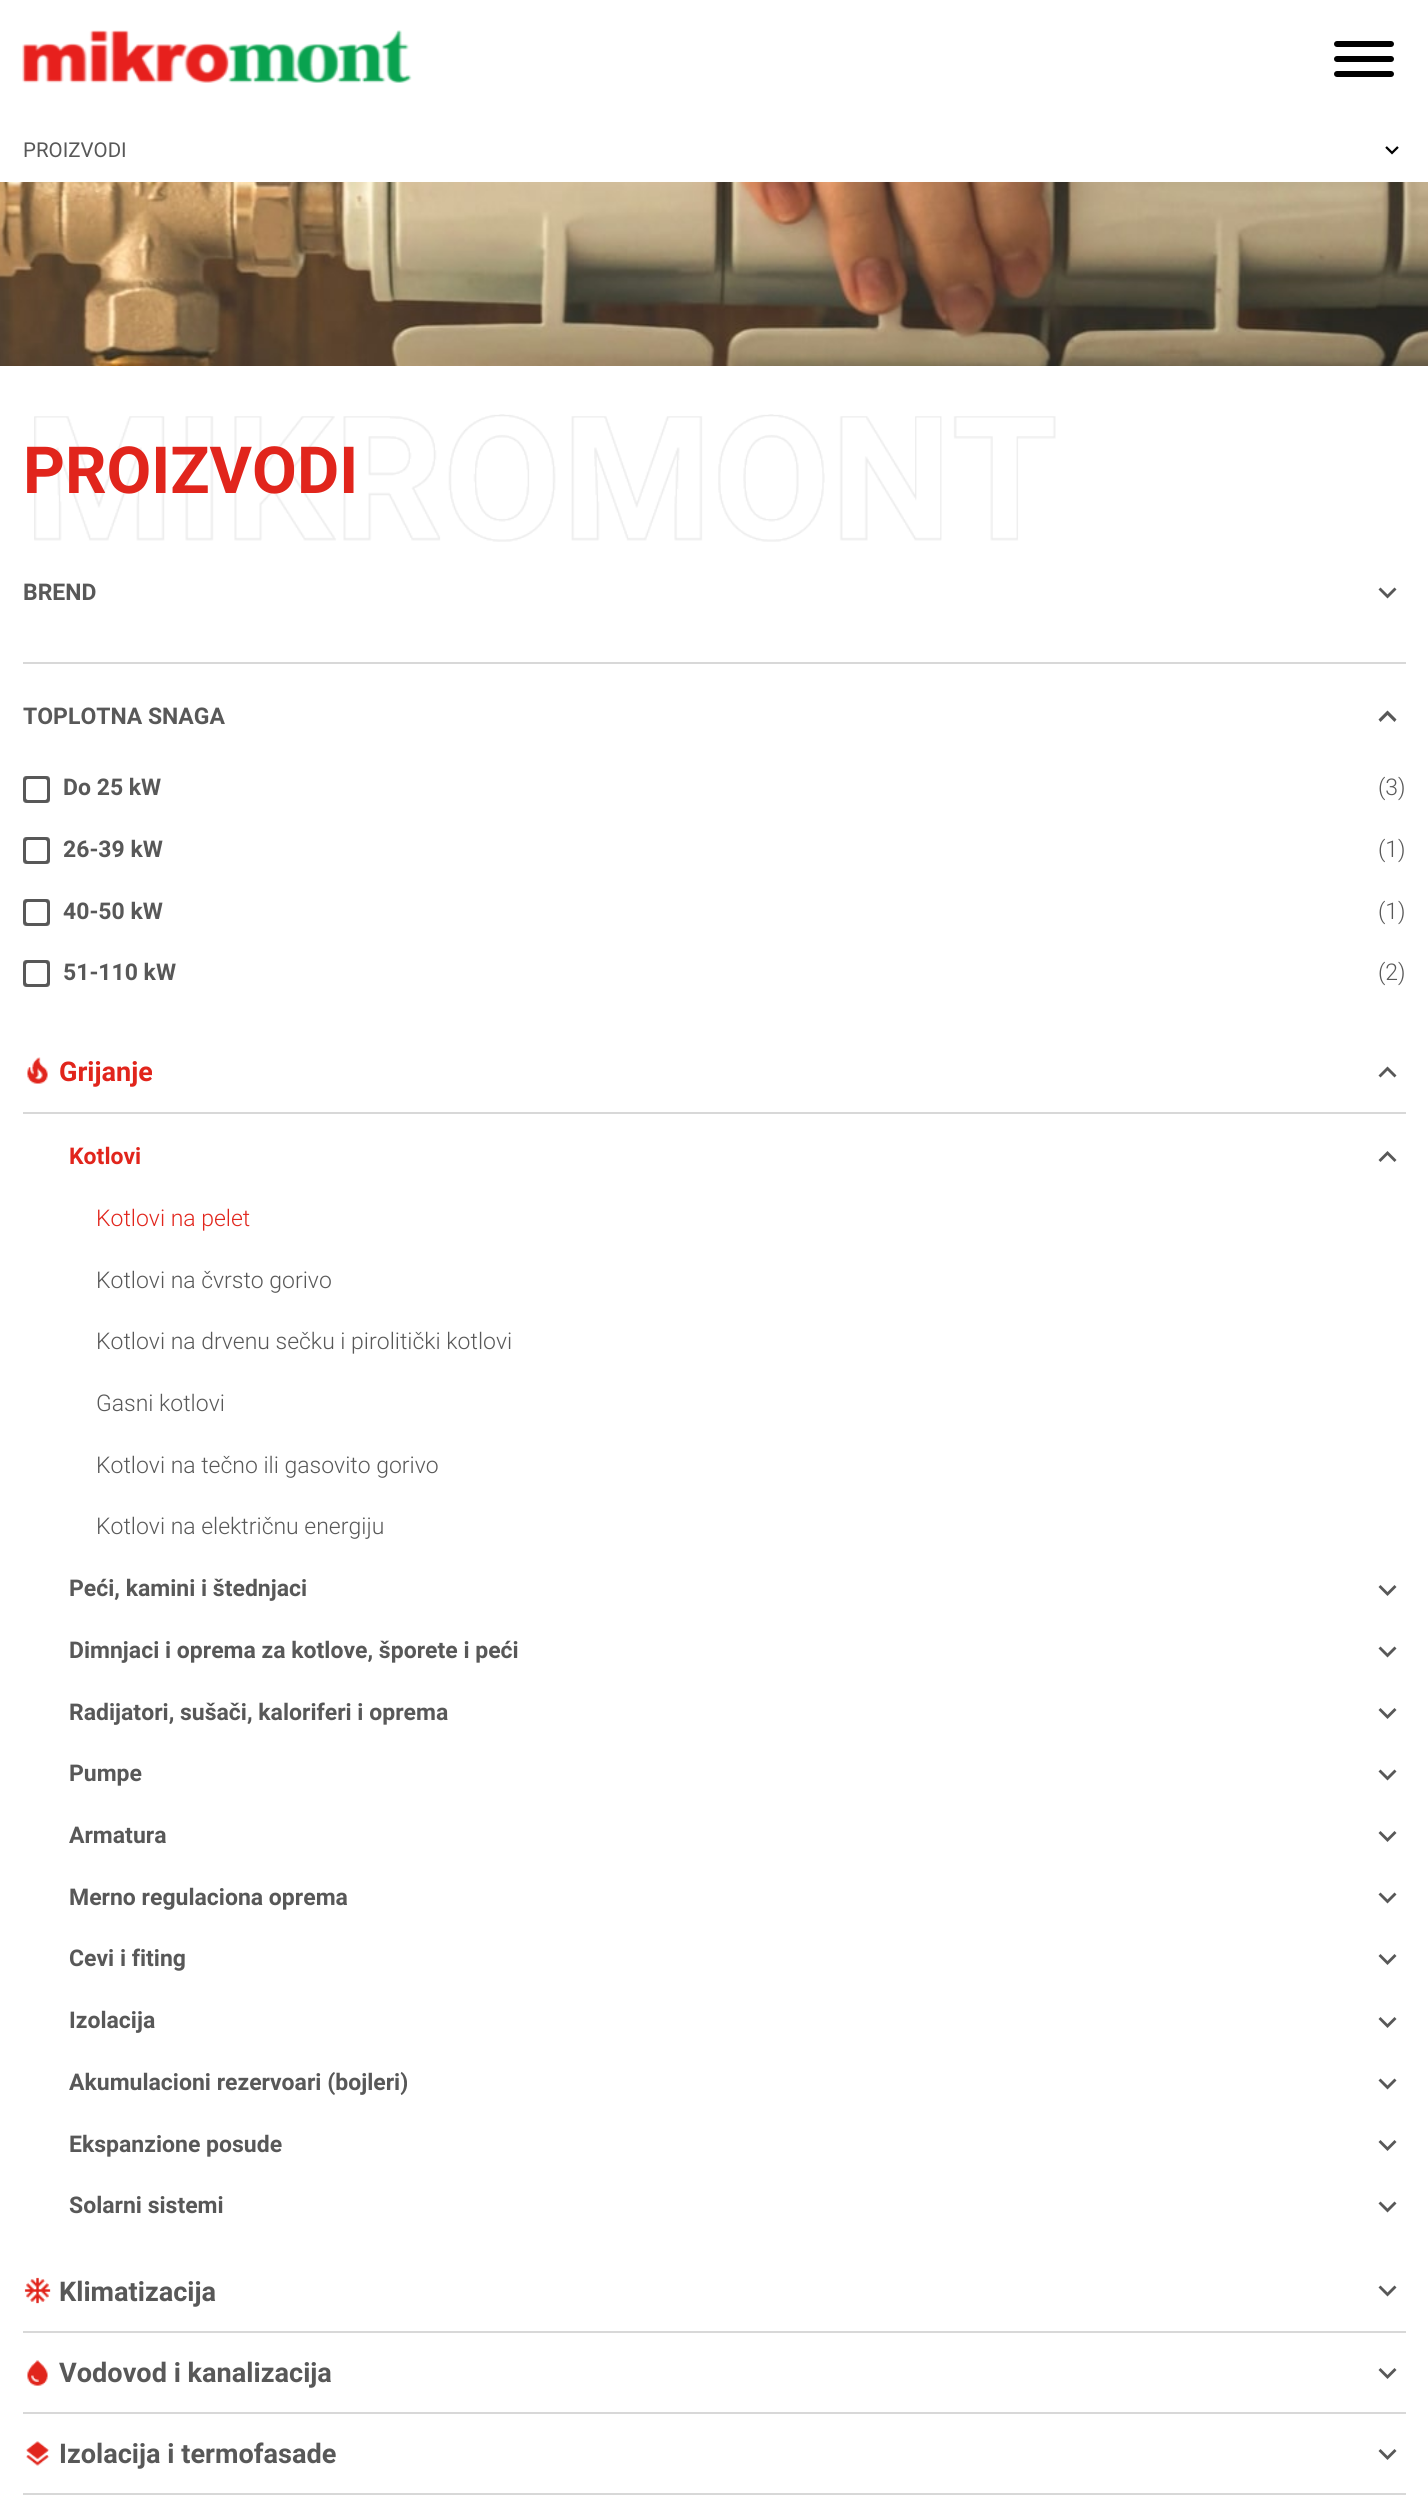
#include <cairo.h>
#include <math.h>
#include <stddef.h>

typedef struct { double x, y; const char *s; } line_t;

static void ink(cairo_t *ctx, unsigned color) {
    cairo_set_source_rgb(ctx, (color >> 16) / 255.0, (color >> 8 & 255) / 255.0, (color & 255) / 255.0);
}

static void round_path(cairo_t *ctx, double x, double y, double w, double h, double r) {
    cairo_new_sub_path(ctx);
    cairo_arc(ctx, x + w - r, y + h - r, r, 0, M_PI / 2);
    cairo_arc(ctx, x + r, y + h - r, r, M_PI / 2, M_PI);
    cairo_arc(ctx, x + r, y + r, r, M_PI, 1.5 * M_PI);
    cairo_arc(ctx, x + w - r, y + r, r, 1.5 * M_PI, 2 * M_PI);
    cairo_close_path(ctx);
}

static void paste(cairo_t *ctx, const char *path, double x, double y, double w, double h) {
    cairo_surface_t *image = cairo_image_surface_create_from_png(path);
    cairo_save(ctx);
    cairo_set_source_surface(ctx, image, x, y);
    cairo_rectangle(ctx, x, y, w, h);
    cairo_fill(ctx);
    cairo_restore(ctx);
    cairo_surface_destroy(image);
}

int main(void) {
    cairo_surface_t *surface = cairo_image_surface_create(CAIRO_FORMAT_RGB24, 1428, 2520);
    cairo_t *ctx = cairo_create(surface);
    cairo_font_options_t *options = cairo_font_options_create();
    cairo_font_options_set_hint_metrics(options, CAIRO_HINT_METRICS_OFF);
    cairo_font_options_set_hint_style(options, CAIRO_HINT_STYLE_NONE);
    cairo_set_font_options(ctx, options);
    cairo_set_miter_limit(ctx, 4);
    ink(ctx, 0xFFFFFF);
    cairo_paint(ctx);
    paste(ctx, "media/1.png", 22, 30, 390, 53);
    ink(ctx, 0x000000);
    round_path(ctx, 1334, 56, 60, 6, 3);
    cairo_fill(ctx);
    round_path(ctx, 1334, 41, 60, 6, 3);
    cairo_fill(ctx);
    round_path(ctx, 1334, 71, 60, 6, 3);
    cairo_fill(ctx);
    cairo_select_font_face(ctx, "Roboto", CAIRO_FONT_SLANT_NORMAL, CAIRO_FONT_WEIGHT_NORMAL);
    cairo_set_font_size(ctx, 20.5);
    ink(ctx, 0x585858);
    cairo_move_to(ctx, 23, 157);
    cairo_show_text(ctx, "PROIZVODI");
    paste(ctx, "media/2.png", 1385, 146, 14, 9);
    paste(ctx, "media/3.png", 0, 182, 1428, 184);
    paste(ctx, "media/4.png", 34, 414, 1022, 128);
    cairo_select_font_face(ctx, "Roboto", CAIRO_FONT_SLANT_NORMAL, CAIRO_FONT_WEIGHT_BOLD);
    cairo_set_font_size(ctx, 65);
    ink(ctx, 0xE1251C);
    cairo_move_to(ctx, 23, 493);
    cairo_show_text(ctx, "PROIZVODI");
    ink(ctx, 0xD8D8D8);
    cairo_rectangle(ctx, 23, 662, 1383, 2);
    cairo_fill(ctx);
    cairo_set_font_size(ctx, 23);
    ink(ctx, 0x585858);
    cairo_move_to(ctx, 23, 600);
    cairo_show_text(ctx, "BREND");
    cairo_new_path(ctx);
    cairo_move_to(ctx, 1380.5, 587.5);
    cairo_line_to(ctx, 1387.5, 594.5);
    cairo_line_to(ctx, 1394.5, 587.5);
    cairo_line_to(ctx, 1396.5, 589.5);
    cairo_line_to(ctx, 1387.5, 598.5);
    cairo_line_to(ctx, 1378.5, 589.5);
    cairo_close_path(ctx);
    cairo_fill(ctx);
    cairo_move_to(ctx, 23, 724);
    cairo_show_text(ctx, "TOPLOTNA SNAGA");
    cairo_new_path(ctx);
    cairo_move_to(ctx, 1394.5, 722);
    cairo_line_to(ctx, 1387.5, 715);
    cairo_line_to(ctx, 1380.5, 722);
    cairo_line_to(ctx, 1378.5, 719.5);
    cairo_line_to(ctx, 1387.5, 710.5);
    cairo_line_to(ctx, 1396.5, 719.5);
    cairo_close_path(ctx);
    cairo_fill(ctx);
    round_path(ctx, 24, 777, 25, 25, 2);
    ink(ctx, 0x767676);
    cairo_stroke(ctx);
    ink(ctx, 0xFFFFFF);
    round_path(ctx, 24.5, 777.5, 24, 24, 3.5);
    cairo_fill_preserve(ctx);
    ink(ctx, 0x585858);
    cairo_set_line_width(ctx, 3);
    cairo_stroke(ctx);
    cairo_move_to(ctx, 63, 795);
    cairo_show_text(ctx, "Do 25 kW");
    cairo_select_font_face(ctx, "Roboto Light", CAIRO_FONT_SLANT_NORMAL, CAIRO_FONT_WEIGHT_NORMAL);
    cairo_move_to(ctx, 1378, 795);
    cairo_show_text(ctx, "(3)");
    round_path(ctx, 24, 838, 25, 25, 2);
    ink(ctx, 0x767676);
    cairo_set_line_width(ctx, 2);
    cairo_stroke(ctx);
    ink(ctx, 0xFFFFFF);
    round_path(ctx, 24.5, 838.5, 24, 24, 3.5);
    cairo_fill_preserve(ctx);
    ink(ctx, 0x585858);
    cairo_set_line_width(ctx, 3);
    cairo_stroke(ctx);
    cairo_select_font_face(ctx, "Roboto", CAIRO_FONT_SLANT_NORMAL, CAIRO_FONT_WEIGHT_BOLD);
    cairo_move_to(ctx, 63, 857);
    cairo_show_text(ctx, "26-39 kW");
    cairo_select_font_face(ctx, "Roboto Light", CAIRO_FONT_SLANT_NORMAL, CAIRO_FONT_WEIGHT_NORMAL);
    cairo_move_to(ctx, 1378, 857);
    cairo_show_text(ctx, "(1)");
    round_path(ctx, 24, 900, 25, 25, 2);
    ink(ctx, 0x767676);
    cairo_set_line_width(ctx, 2);
    cairo_stroke(ctx);
    ink(ctx, 0xFFFFFF);
    round_path(ctx, 24.5, 900.5, 24, 24, 3.5);
    cairo_fill_preserve(ctx);
    ink(ctx, 0x585858);
    cairo_set_line_width(ctx, 3);
    cairo_stroke(ctx);
    cairo_select_font_face(ctx, "Roboto", CAIRO_FONT_SLANT_NORMAL, CAIRO_FONT_WEIGHT_BOLD);
    cairo_move_to(ctx, 63, 919);
    cairo_show_text(ctx, "40-50 kW");
    cairo_select_font_face(ctx, "Roboto Light", CAIRO_FONT_SLANT_NORMAL, CAIRO_FONT_WEIGHT_NORMAL);
    cairo_move_to(ctx, 1378, 919);
    cairo_show_text(ctx, "(1)");
    round_path(ctx, 24, 961, 25, 25, 2);
    ink(ctx, 0x767676);
    cairo_set_line_width(ctx, 2);
    cairo_stroke(ctx);
    ink(ctx, 0xFFFFFF);
    round_path(ctx, 24.5, 961.5, 24, 24, 3.5);
    cairo_fill_preserve(ctx);
    ink(ctx, 0x585858);
    cairo_set_line_width(ctx, 3);
    cairo_stroke(ctx);
    cairo_select_font_face(ctx, "Roboto", CAIRO_FONT_SLANT_NORMAL, CAIRO_FONT_WEIGHT_BOLD);
    cairo_move_to(ctx, 63, 980);
    cairo_show_text(ctx, "51-110 kW");
    cairo_select_font_face(ctx, "Roboto Light", CAIRO_FONT_SLANT_NORMAL, CAIRO_FONT_WEIGHT_NORMAL);
    cairo_move_to(ctx, 1378, 980);
    cairo_show_text(ctx, "(2)");
    ink(ctx, 0xD8D8D8);
    cairo_rectangle(ctx, 23, 1112, 1383, 2);
    cairo_fill(ctx);
    paste(ctx, "media/5.png", 27, 1057, 21, 27);
    cairo_select_font_face(ctx, "Roboto", CAIRO_FONT_SLANT_NORMAL, CAIRO_FONT_WEIGHT_BOLD);
    cairo_set_font_size(ctx, 27.1);
    ink(ctx, 0xE1251C);
    cairo_move_to(ctx, 59, 1081);
    cairo_show_text(ctx, "Grijanje");
    ink(ctx, 0x585858);
    cairo_new_path(ctx);
    cairo_move_to(ctx, 1394.5, 1077.5);
    cairo_line_to(ctx, 1387.5, 1070.5);
    cairo_line_to(ctx, 1380.5, 1077.5);
    cairo_line_to(ctx, 1378.5, 1075.5);
    cairo_line_to(ctx, 1387.5, 1066.5);
    cairo_line_to(ctx, 1396.5, 1075.5);
    cairo_close_path(ctx);
    cairo_fill(ctx);
    cairo_set_font_size(ctx, 23);
    ink(ctx, 0xE1251C);
    cairo_move_to(ctx, 69, 1164);
    cairo_show_text(ctx, "Kotlovi");
    ink(ctx, 0x585858);
    cairo_new_path(ctx);
    cairo_move_to(ctx, 1394.5, 1162);
    cairo_line_to(ctx, 1387.5, 1155);
    cairo_line_to(ctx, 1380.5, 1162);
    cairo_line_to(ctx, 1378.5, 1160);
    cairo_line_to(ctx, 1387.5, 1151);
    cairo_line_to(ctx, 1396.5, 1160);
    cairo_close_path(ctx);
    cairo_fill(ctx);
    cairo_select_font_face(ctx, "Roboto Light", CAIRO_FONT_SLANT_NORMAL, CAIRO_FONT_WEIGHT_NORMAL);
    ink(ctx, 0xE1251C);
    cairo_move_to(ctx, 96, 1226);
    cairo_show_text(ctx, "Kotlovi na pelet");
    ink(ctx, 0x585858);
    {
        static const line_t items[] = {
            {96, 1288, "Kotlovi na čvrsto gorivo"},
            {96, 1349, "Kotlovi na drvenu sečku i pirolitički kotlovi"},
            {96, 1411, "Gasni kotlovi"},
            {96, 1473, "Kotlovi na tečno ili gasovito gorivo"},
            {96, 1534, "Kotlovi na električnu energiju"},
        };
        for (size_t i = 0; i < sizeof items / sizeof *items; i++) {
            cairo_move_to(ctx, items[i].x, items[i].y);
            cairo_show_text(ctx, items[i].s);
        }
    }
    cairo_select_font_face(ctx, "Roboto", CAIRO_FONT_SLANT_NORMAL, CAIRO_FONT_WEIGHT_BOLD);
    cairo_move_to(ctx, 69, 1596);
    cairo_show_text(ctx, "Peći, kamini i štednjaci");
    cairo_new_path(ctx);
    cairo_move_to(ctx, 1380.5, 1585);
    cairo_line_to(ctx, 1387.5, 1592);
    cairo_line_to(ctx, 1394.5, 1585);
    cairo_line_to(ctx, 1396.5, 1587);
    cairo_line_to(ctx, 1387.5, 1596);
    cairo_line_to(ctx, 1378.5, 1587);
    cairo_close_path(ctx);
    cairo_fill(ctx);
    cairo_move_to(ctx, 69, 1658);
    cairo_show_text(ctx, "Dimnjaci i oprema za kotlove, šporete i peći");
    cairo_new_path(ctx);
    cairo_move_to(ctx, 1380.5, 1646.5);
    cairo_line_to(ctx, 1387.5, 1653.5);
    cairo_line_to(ctx, 1394.5, 1646.5);
    cairo_line_to(ctx, 1396.5, 1648.5);
    cairo_line_to(ctx, 1387.5, 1657.5);
    cairo_line_to(ctx, 1378.5, 1648.5);
    cairo_close_path(ctx);
    cairo_fill(ctx);
    cairo_move_to(ctx, 69, 1720);
    cairo_show_text(ctx, "Radijatori, sušači, kaloriferi i oprema");
    cairo_new_path(ctx);
    cairo_move_to(ctx, 1380.5, 1708);
    cairo_line_to(ctx, 1387.5, 1715);
    cairo_line_to(ctx, 1394.5, 1708);
    cairo_line_to(ctx, 1396.5, 1710);
    cairo_line_to(ctx, 1387.5, 1719);
    cairo_line_to(ctx, 1378.5, 1710);
    cairo_close_path(ctx);
    cairo_fill(ctx);
    cairo_move_to(ctx, 69, 1781);
    cairo_show_text(ctx, "Pumpe");
    cairo_new_path(ctx);
    cairo_move_to(ctx, 1380.5, 1769.5);
    cairo_line_to(ctx, 1387.5, 1776.5);
    cairo_line_to(ctx, 1394.5, 1769.5);
    cairo_line_to(ctx, 1396.5, 1771.5);
    cairo_line_to(ctx, 1387.5, 1780.5);
    cairo_line_to(ctx, 1378.5, 1771.5);
    cairo_close_path(ctx);
    cairo_fill(ctx);
    cairo_move_to(ctx, 69, 1843);
    cairo_show_text(ctx, "Armatura");
    cairo_new_path(ctx);
    cairo_move_to(ctx, 1380.5, 1831);
    cairo_line_to(ctx, 1387.5, 1838);
    cairo_line_to(ctx, 1394.5, 1831);
    cairo_line_to(ctx, 1396.5, 1833);
    cairo_line_to(ctx, 1387.5, 1842);
    cairo_line_to(ctx, 1378.5, 1833);
    cairo_close_path(ctx);
    cairo_fill(ctx);
    cairo_move_to(ctx, 69, 1905);
    cairo_show_text(ctx, "Merno regulaciona oprema");
    cairo_new_path(ctx);
    cairo_move_to(ctx, 1380.5, 1892.5);
    cairo_line_to(ctx, 1387.5, 1899.5);
    cairo_line_to(ctx, 1394.5, 1892.5);
    cairo_line_to(ctx, 1396.5, 1894.5);
    cairo_line_to(ctx, 1387.5, 1903.5);
    cairo_line_to(ctx, 1378.5, 1894.5);
    cairo_close_path(ctx);
    cairo_fill(ctx);
    cairo_move_to(ctx, 69, 1966);
    cairo_show_text(ctx, "Cevi i fiting");
    cairo_new_path(ctx);
    cairo_move_to(ctx, 1380.5, 1954);
    cairo_line_to(ctx, 1387.5, 1961);
    cairo_line_to(ctx, 1394.5, 1954);
    cairo_line_to(ctx, 1396.5, 1956);
    cairo_line_to(ctx, 1387.5, 1965);
    cairo_line_to(ctx, 1378.5, 1956);
    cairo_close_path(ctx);
    cairo_fill(ctx);
    cairo_move_to(ctx, 69, 2028);
    cairo_show_text(ctx, "Izolacija");
    cairo_new_path(ctx);
    cairo_move_to(ctx, 1380.5, 2017);
    cairo_line_to(ctx, 1387.5, 2024);
    cairo_line_to(ctx, 1394.5, 2017);
    cairo_line_to(ctx, 1396.5, 2019);
    cairo_line_to(ctx, 1387.5, 2028);
    cairo_line_to(ctx, 1378.5, 2019);
    cairo_close_path(ctx);
    cairo_fill(ctx);
    cairo_move_to(ctx, 69, 2090);
    cairo_show_text(ctx, "Akumulacioni rezervoari (bojleri)");
    cairo_new_path(ctx);
    cairo_move_to(ctx, 1380.5, 2078.5);
    cairo_line_to(ctx, 1387.5, 2085.5);
    cairo_line_to(ctx, 1394.5, 2078.5);
    cairo_line_to(ctx, 1396.5, 2080.5);
    cairo_line_to(ctx, 1387.5, 2089.5);
    cairo_line_to(ctx, 1378.5, 2080.5);
    cairo_close_path(ctx);
    cairo_fill(ctx);
    cairo_move_to(ctx, 69, 2152);
    cairo_show_text(ctx, "Ekspanzione posude");
    cairo_new_path(ctx);
    cairo_move_to(ctx, 1380.5, 2140);
    cairo_line_to(ctx, 1387.5, 2147);
    cairo_line_to(ctx, 1394.5, 2140);
    cairo_line_to(ctx, 1396.5, 2142);
    cairo_line_to(ctx, 1387.5, 2151);
    cairo_line_to(ctx, 1378.5, 2142);
    cairo_close_path(ctx);
    cairo_fill(ctx);
    cairo_move_to(ctx, 69, 2213);
    cairo_show_text(ctx, "Solarni sistemi");
    cairo_new_path(ctx);
    cairo_move_to(ctx, 1380.5, 2201.5);
    cairo_line_to(ctx, 1387.5, 2208.5);
    cairo_line_to(ctx, 1394.5, 2201.5);
    cairo_line_to(ctx, 1396.5, 2203.5);
    cairo_line_to(ctx, 1387.5, 2212.5);
    cairo_line_to(ctx, 1378.5, 2203.5);
    cairo_close_path(ctx);
    cairo_fill(ctx);
    ink(ctx, 0xD8D8D8);
    cairo_rectangle(ctx, 23, 2331, 1383, 2);
    cairo_fill(ctx);
    paste(ctx, "media/6.png", 24, 2277, 27, 27);
    cairo_set_font_size(ctx, 27.1);
    ink(ctx, 0x585858);
    cairo_move_to(ctx, 59, 2301);
    cairo_show_text(ctx, "Klimatizacija");
    cairo_new_path(ctx);
    cairo_move_to(ctx, 1380.5, 2285.5);
    cairo_line_to(ctx, 1387.5, 2292.5);
    cairo_line_to(ctx, 1394.5, 2285.5);
    cairo_line_to(ctx, 1396.5, 2287.5);
    cairo_line_to(ctx, 1387.5, 2296.5);
    cairo_line_to(ctx, 1378.5, 2287.5);
    cairo_close_path(ctx);
    cairo_fill(ctx);
    ink(ctx, 0xD8D8D8);
    cairo_rectangle(ctx, 23, 2412, 1383, 2);
    cairo_fill(ctx);
    paste(ctx, "media/7.png", 27, 2360, 21, 26);
    ink(ctx, 0x585858);
    cairo_move_to(ctx, 59, 2382);
    cairo_show_text(ctx, "Vodovod i kanalizacija");
    cairo_new_path(ctx);
    cairo_move_to(ctx, 1380.5, 2368);
    cairo_line_to(ctx, 1387.5, 2375);
    cairo_line_to(ctx, 1394.5, 2368);
    cairo_line_to(ctx, 1396.5, 2370);
    cairo_line_to(ctx, 1387.5, 2379);
    cairo_line_to(ctx, 1378.5, 2370);
    cairo_close_path(ctx);
    cairo_fill(ctx);
    ink(ctx, 0xD8D8D8);
    cairo_rectangle(ctx, 23, 2493, 1383, 2);
    cairo_fill(ctx);
    paste(ctx, "media/8.png", 26, 2441, 24, 25);
    ink(ctx, 0x585858);
    cairo_move_to(ctx, 59, 2463);
    cairo_show_text(ctx, "Izolacija i termofasade");
    cairo_new_path(ctx);
    cairo_move_to(ctx, 1380.5, 2449);
    cairo_line_to(ctx, 1387.5, 2456);
    cairo_line_to(ctx, 1394.5, 2449);
    cairo_line_to(ctx, 1396.5, 2451);
    cairo_line_to(ctx, 1387.5, 2460);
    cairo_line_to(ctx, 1378.5, 2451);
    cairo_close_path(ctx);
    cairo_fill(ctx);
    cairo_surface_write_to_png(surface, "image.png");
    cairo_font_options_destroy(options);
    cairo_destroy(ctx);
    cairo_surface_destroy(surface);
    return 0;
}
